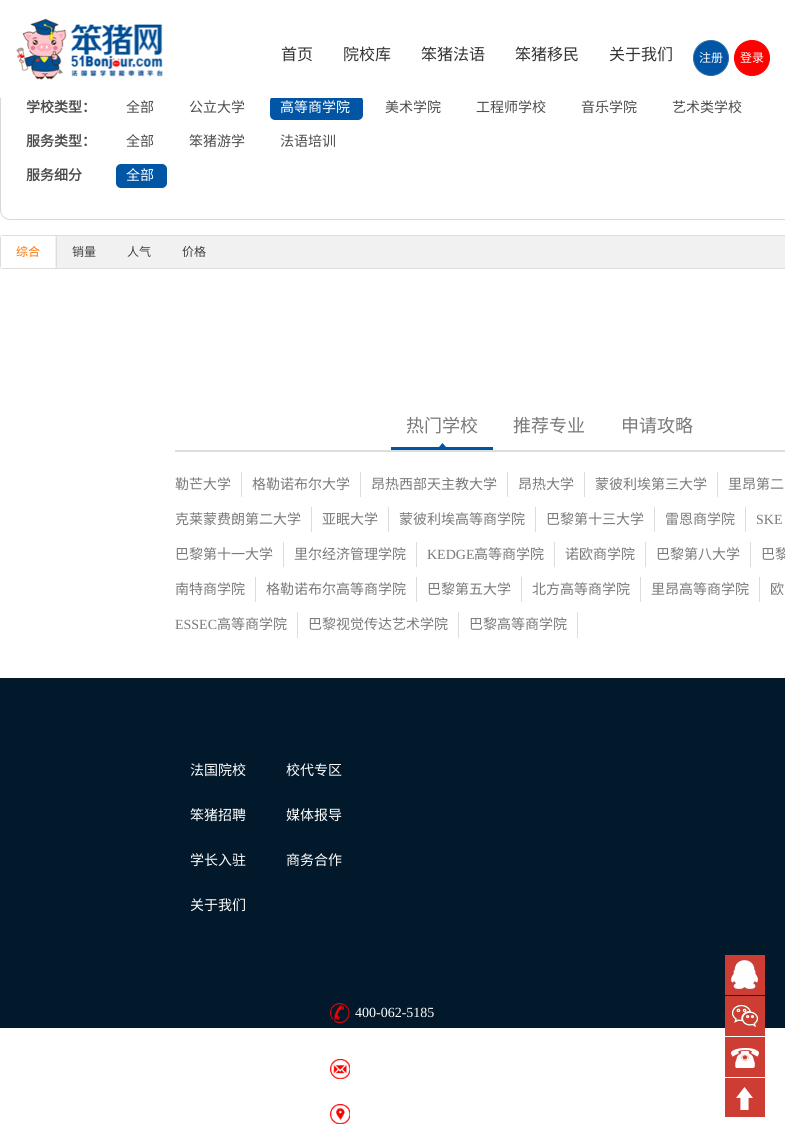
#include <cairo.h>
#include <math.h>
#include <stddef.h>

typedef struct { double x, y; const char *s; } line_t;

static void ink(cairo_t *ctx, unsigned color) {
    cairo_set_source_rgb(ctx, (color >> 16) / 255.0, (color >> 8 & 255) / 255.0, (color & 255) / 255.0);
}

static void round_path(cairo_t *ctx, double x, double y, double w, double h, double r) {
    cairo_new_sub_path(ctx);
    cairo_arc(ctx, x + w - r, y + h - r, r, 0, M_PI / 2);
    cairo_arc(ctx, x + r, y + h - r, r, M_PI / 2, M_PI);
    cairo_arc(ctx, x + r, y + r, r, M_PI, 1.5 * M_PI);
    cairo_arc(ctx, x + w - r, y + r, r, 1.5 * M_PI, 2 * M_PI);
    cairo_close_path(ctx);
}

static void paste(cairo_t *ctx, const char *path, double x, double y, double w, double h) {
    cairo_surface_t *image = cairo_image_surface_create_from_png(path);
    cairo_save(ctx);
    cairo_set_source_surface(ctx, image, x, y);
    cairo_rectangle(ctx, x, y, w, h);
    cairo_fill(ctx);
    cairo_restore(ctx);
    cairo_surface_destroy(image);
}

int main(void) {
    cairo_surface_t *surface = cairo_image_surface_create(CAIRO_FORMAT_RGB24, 785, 1138);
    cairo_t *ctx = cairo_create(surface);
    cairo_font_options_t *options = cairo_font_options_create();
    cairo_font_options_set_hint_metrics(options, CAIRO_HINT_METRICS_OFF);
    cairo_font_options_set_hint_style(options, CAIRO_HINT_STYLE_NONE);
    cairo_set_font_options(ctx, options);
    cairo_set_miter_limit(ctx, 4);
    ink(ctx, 0xFFFFFF);
    cairo_paint(ctx);
    round_path(ctx, 0.5, 73.5, 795, 146, 9.5);
    ink(ctx, 0xD7D8DA);
    cairo_set_line_width(ctx, 1);
    cairo_stroke(ctx);
    ink(ctx, 0x0055A4);
    round_path(ctx, 270, 96, 93, 24, 5);
    cairo_fill(ctx);
    ink(ctx, 0xFFFFFF);
    cairo_rectangle(ctx, 0, 73, 785, 25);
    cairo_fill(ctx);
    paste(ctx, "media/1.png", 16, 18, 147, 62);
    cairo_select_font_face(ctx, "Noto Sans CJK SC", CAIRO_FONT_SLANT_NORMAL, CAIRO_FONT_WEIGHT_NORMAL);
    cairo_set_font_size(ctx, 16);
    ink(ctx, 0x333333);
    {
        static const line_t items[] = {
            {281, 60, "首页"},
            {343, 60, "院校库"},
            {421, 60, "笨猪法语"},
            {515, 60, "笨猪移民"},
            {609, 60, "关于我们"},
        };
        for (size_t i = 0; i < sizeof items / sizeof *items; i++) {
            cairo_move_to(ctx, items[i].x, items[i].y);
            cairo_show_text(ctx, items[i].s);
        }
    }
    ink(ctx, 0x0055A4);
    cairo_new_path(ctx);
    cairo_arc(ctx, 711, 58, 17.5, 0, 2 * M_PI);
    cairo_fill_preserve(ctx);
    ink(ctx, 0x2E6DA4);
    cairo_stroke(ctx);
    cairo_set_font_size(ctx, 12);
    ink(ctx, 0xFFFFFF);
    cairo_move_to(ctx, 699, 62);
    cairo_show_text(ctx, "注册");
    ink(ctx, 0xFE0000);
    cairo_new_path(ctx);
    cairo_arc(ctx, 752, 58, 17.5, 0, 2 * M_PI);
    cairo_fill_preserve(ctx);
    cairo_stroke(ctx);
    ink(ctx, 0xFFFFFF);
    cairo_move_to(ctx, 740, 62);
    cairo_show_text(ctx, "登录");
    cairo_select_font_face(ctx, "Noto Sans CJK SC", CAIRO_FONT_SLANT_NORMAL, CAIRO_FONT_WEIGHT_BOLD);
    cairo_set_font_size(ctx, 14);
    ink(ctx, 0x4C4C4C);
    cairo_move_to(ctx, 26, 112);
    cairo_show_text(ctx, "学校类型：");
    cairo_select_font_face(ctx, "Noto Sans CJK SC", CAIRO_FONT_SLANT_NORMAL, CAIRO_FONT_WEIGHT_NORMAL);
    cairo_move_to(ctx, 126, 112);
    cairo_show_text(ctx, "全部");
    cairo_move_to(ctx, 189, 112);
    cairo_show_text(ctx, "公立大学");
    ink(ctx, 0xFFFFFF);
    cairo_move_to(ctx, 280, 112);
    cairo_show_text(ctx, "高等商学院");
    ink(ctx, 0x4C4C4C);
    {
        static const line_t items[] = {
            {385, 112, "美术学院"},
            {476, 112, "工程师学校"},
            {581, 112, "音乐学院"},
            {672, 112, "艺术类学校"},
        };
        for (size_t i = 0; i < sizeof items / sizeof *items; i++) {
            cairo_move_to(ctx, items[i].x, items[i].y);
            cairo_show_text(ctx, items[i].s);
        }
    }
    cairo_select_font_face(ctx, "Noto Sans CJK SC", CAIRO_FONT_SLANT_NORMAL, CAIRO_FONT_WEIGHT_BOLD);
    cairo_move_to(ctx, 26, 146);
    cairo_show_text(ctx, "服务类型：");
    cairo_select_font_face(ctx, "Noto Sans CJK SC", CAIRO_FONT_SLANT_NORMAL, CAIRO_FONT_WEIGHT_NORMAL);
    {
        static const line_t items[] = {
            {126, 146, "全部"},
            {189, 146, "笨猪游学"},
            {280, 146, "法语培训"},
        };
        for (size_t i = 0; i < sizeof items / sizeof *items; i++) {
            cairo_move_to(ctx, items[i].x, items[i].y);
            cairo_show_text(ctx, items[i].s);
        }
    }
    cairo_select_font_face(ctx, "Noto Sans CJK SC", CAIRO_FONT_SLANT_NORMAL, CAIRO_FONT_WEIGHT_BOLD);
    cairo_move_to(ctx, 26, 180);
    cairo_show_text(ctx, "服务细分");
    ink(ctx, 0x0055A4);
    round_path(ctx, 116, 164, 51, 24, 5);
    cairo_fill(ctx);
    cairo_select_font_face(ctx, "Noto Sans CJK SC", CAIRO_FONT_SLANT_NORMAL, CAIRO_FONT_WEIGHT_NORMAL);
    ink(ctx, 0xFFFFFF);
    cairo_move_to(ctx, 126, 180);
    cairo_show_text(ctx, "全部");
    ink(ctx, 0xF1F1F1);
    round_path(ctx, 0.5, 235.5, 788, 33, 2.5);
    cairo_fill_preserve(ctx);
    ink(ctx, 0xDDDDDD);
    cairo_stroke(ctx);
    cairo_rectangle(ctx, 56, 236, 1, 32);
    cairo_fill(ctx);
    ink(ctx, 0xFFFFFF);
    cairo_rectangle(ctx, 1, 236, 54, 32);
    cairo_fill(ctx);
    cairo_set_font_size(ctx, 12);
    ink(ctx, 0xFE7200);
    cairo_move_to(ctx, 16, 256);
    cairo_show_text(ctx, "综合");
    ink(ctx, 0x404040);
    {
        static const line_t items[] = {
            {72, 256, "销量"},
            {127, 256, "人气"},
            {182, 256, "价格"},
        };
        for (size_t i = 0; i < sizeof items / sizeof *items; i++) {
            cairo_move_to(ctx, items[i].x, items[i].y);
            cairo_show_text(ctx, items[i].s);
        }
    }
    ink(ctx, 0xDDDDDD);
    cairo_rectangle(ctx, 175, 450, 610, 2);
    cairo_fill(ctx);
    paste(ctx, "media/2.png", 391, 443, 102, 7);
    cairo_set_font_size(ctx, 18);
    ink(ctx, 0x797979);
    {
        static const line_t items[] = {
            {406, 432, "热门学校"},
            {513, 432, "推荐专业"},
            {621, 432, "申请攻略"},
        };
        for (size_t i = 0; i < sizeof items / sizeof *items; i++) {
            cairo_move_to(ctx, items[i].x, items[i].y);
            cairo_show_text(ctx, items[i].s);
        }
    }
    ink(ctx, 0xDCDCDC);
    cairo_rectangle(ctx, 241, 472, 1, 25);
    cairo_fill(ctx);
    cairo_set_font_size(ctx, 14);
    ink(ctx, 0x797979);
    cairo_move_to(ctx, 175, 489);
    cairo_show_text(ctx, "勒芒大学");
    ink(ctx, 0xDCDCDC);
    cairo_rectangle(ctx, 360, 472, 1, 25);
    cairo_fill(ctx);
    ink(ctx, 0x797979);
    cairo_move_to(ctx, 252, 489);
    cairo_show_text(ctx, "格勒诺布尔大学");
    ink(ctx, 0xDCDCDC);
    cairo_rectangle(ctx, 507, 472, 1, 25);
    cairo_fill(ctx);
    ink(ctx, 0x797979);
    cairo_move_to(ctx, 371, 489);
    cairo_show_text(ctx, "昂热西部天主教大学");
    ink(ctx, 0xDCDCDC);
    cairo_rectangle(ctx, 584, 472, 1, 25);
    cairo_fill(ctx);
    ink(ctx, 0x797979);
    cairo_move_to(ctx, 518, 489);
    cairo_show_text(ctx, "昂热大学");
    ink(ctx, 0xDCDCDC);
    cairo_rectangle(ctx, 717, 472, 1, 25);
    cairo_fill(ctx);
    ink(ctx, 0x797979);
    cairo_move_to(ctx, 595, 489);
    cairo_show_text(ctx, "蒙彼利埃第三大学");
    cairo_move_to(ctx, 728, 489);
    cairo_show_text(ctx, "里昂第二");
    ink(ctx, 0xDCDCDC);
    cairo_rectangle(ctx, 311, 507, 1, 25);
    cairo_fill(ctx);
    ink(ctx, 0x797979);
    cairo_move_to(ctx, 175, 524);
    cairo_show_text(ctx, "克莱蒙费朗第二大学");
    ink(ctx, 0xDCDCDC);
    cairo_rectangle(ctx, 388, 507, 1, 25);
    cairo_fill(ctx);
    ink(ctx, 0x797979);
    cairo_move_to(ctx, 322, 524);
    cairo_show_text(ctx, "亚眠大学");
    ink(ctx, 0xDCDCDC);
    cairo_rectangle(ctx, 535, 507, 1, 25);
    cairo_fill(ctx);
    ink(ctx, 0x797979);
    cairo_move_to(ctx, 399, 524);
    cairo_show_text(ctx, "蒙彼利埃高等商学院");
    ink(ctx, 0xDCDCDC);
    cairo_rectangle(ctx, 654, 507, 1, 25);
    cairo_fill(ctx);
    ink(ctx, 0x797979);
    cairo_move_to(ctx, 546, 524);
    cairo_show_text(ctx, "巴黎第十三大学");
    ink(ctx, 0xDCDCDC);
    cairo_rectangle(ctx, 745, 507, 1, 25);
    cairo_fill(ctx);
    ink(ctx, 0x797979);
    cairo_move_to(ctx, 665, 524);
    cairo_show_text(ctx, "雷恩商学院");
    cairo_select_font_face(ctx, "Liberation Serif", CAIRO_FONT_SLANT_NORMAL, CAIRO_FONT_WEIGHT_NORMAL);
    cairo_move_to(ctx, 756, 524);
    cairo_show_text(ctx, "SKE");
    ink(ctx, 0xDCDCDC);
    cairo_rectangle(ctx, 283, 542, 1, 25);
    cairo_fill(ctx);
    cairo_select_font_face(ctx, "Noto Sans CJK SC", CAIRO_FONT_SLANT_NORMAL, CAIRO_FONT_WEIGHT_NORMAL);
    ink(ctx, 0x797979);
    cairo_move_to(ctx, 175, 559);
    cairo_show_text(ctx, "巴黎第十一大学");
    ink(ctx, 0xDCDCDC);
    cairo_rectangle(ctx, 416, 542, 1, 25);
    cairo_fill(ctx);
    ink(ctx, 0x797979);
    cairo_move_to(ctx, 294, 559);
    cairo_show_text(ctx, "里尔经济管理学院");
    ink(ctx, 0xDCDCDC);
    cairo_rectangle(ctx, 554, 542, 1, 25);
    cairo_fill(ctx);
    cairo_select_font_face(ctx, "Liberation Serif", CAIRO_FONT_SLANT_NORMAL, CAIRO_FONT_WEIGHT_NORMAL);
    ink(ctx, 0x797979);
    cairo_move_to(ctx, 427, 559);
    cairo_show_text(ctx, "KEDGE");
    cairo_select_font_face(ctx, "Noto Sans CJK SC", CAIRO_FONT_SLANT_NORMAL, CAIRO_FONT_WEIGHT_NORMAL);
    cairo_move_to(ctx, 474, 559);
    cairo_show_text(ctx, "高等商学院");
    ink(ctx, 0xDCDCDC);
    cairo_rectangle(ctx, 645, 542, 1, 25);
    cairo_fill(ctx);
    ink(ctx, 0x797979);
    cairo_move_to(ctx, 565, 559);
    cairo_show_text(ctx, "诺欧商学院");
    ink(ctx, 0xDCDCDC);
    cairo_rectangle(ctx, 750, 542, 1, 25);
    cairo_fill(ctx);
    ink(ctx, 0x797979);
    cairo_move_to(ctx, 656, 559);
    cairo_show_text(ctx, "巴黎第八大学");
    cairo_move_to(ctx, 761, 559);
    cairo_show_text(ctx, "巴黎");
    ink(ctx, 0xDCDCDC);
    cairo_rectangle(ctx, 255, 577, 1, 25);
    cairo_fill(ctx);
    ink(ctx, 0x797979);
    cairo_move_to(ctx, 175, 594);
    cairo_show_text(ctx, "南特商学院");
    ink(ctx, 0xDCDCDC);
    cairo_rectangle(ctx, 416, 577, 1, 25);
    cairo_fill(ctx);
    ink(ctx, 0x797979);
    cairo_move_to(ctx, 266, 594);
    cairo_show_text(ctx, "格勒诺布尔高等商学院");
    ink(ctx, 0xDCDCDC);
    cairo_rectangle(ctx, 521, 577, 1, 25);
    cairo_fill(ctx);
    ink(ctx, 0x797979);
    cairo_move_to(ctx, 427, 594);
    cairo_show_text(ctx, "巴黎第五大学");
    ink(ctx, 0xDCDCDC);
    cairo_rectangle(ctx, 640, 577, 1, 25);
    cairo_fill(ctx);
    ink(ctx, 0x797979);
    cairo_move_to(ctx, 532, 594);
    cairo_show_text(ctx, "北方高等商学院");
    ink(ctx, 0xDCDCDC);
    cairo_rectangle(ctx, 759, 577, 1, 25);
    cairo_fill(ctx);
    ink(ctx, 0x797979);
    cairo_move_to(ctx, 651, 594);
    cairo_show_text(ctx, "里昂高等商学院");
    cairo_move_to(ctx, 770, 594);
    cairo_show_text(ctx, "欧");
    ink(ctx, 0xDCDCDC);
    cairo_rectangle(ctx, 297, 612, 1, 26);
    cairo_fill(ctx);
    cairo_select_font_face(ctx, "Liberation Serif", CAIRO_FONT_SLANT_NORMAL, CAIRO_FONT_WEIGHT_NORMAL);
    ink(ctx, 0x797979);
    cairo_move_to(ctx, 175, 629);
    cairo_show_text(ctx, "ESSEC");
    cairo_select_font_face(ctx, "Noto Sans CJK SC", CAIRO_FONT_SLANT_NORMAL, CAIRO_FONT_WEIGHT_NORMAL);
    cairo_move_to(ctx, 217, 629);
    cairo_show_text(ctx, "高等商学院");
    ink(ctx, 0xDCDCDC);
    cairo_rectangle(ctx, 458, 612, 1, 26);
    cairo_fill(ctx);
    ink(ctx, 0x797979);
    cairo_move_to(ctx, 308, 629);
    cairo_show_text(ctx, "巴黎视觉传达艺术学院");
    ink(ctx, 0xDCDCDC);
    cairo_rectangle(ctx, 577, 612, 1, 26);
    cairo_fill(ctx);
    ink(ctx, 0x797979);
    cairo_move_to(ctx, 469, 629);
    cairo_show_text(ctx, "巴黎高等商学院");
    ink(ctx, 0x02192B);
    cairo_rectangle(ctx, 0, 678, 785, 350);
    cairo_fill(ctx);
    ink(ctx, 0xFFFFFF);
    {
        static const line_t items[] = {
            {190, 775, "法国院校"},
            {286, 775, "校代专区"},
            {190, 820, "笨猪招聘"},
            {286, 820, "媒体报导"},
            {190, 865, "学长入驻"},
            {286, 865, "商务合作"},
            {190, 910, "关于我们"},
        };
        for (size_t i = 0; i < sizeof items / sizeof *items; i++) {
            cairo_move_to(ctx, items[i].x, items[i].y);
            cairo_show_text(ctx, items[i].s);
        }
    }
    paste(ctx, "media/3.png", 330, 1003, 20, 20);
    cairo_select_font_face(ctx, "Liberation Serif", CAIRO_FONT_SLANT_NORMAL, CAIRO_FONT_WEIGHT_NORMAL);
    cairo_move_to(ctx, 355, 1017);
    cairo_show_text(ctx, "400-062-5185");
    paste(ctx, "media/4.png", 330, 1059, 20, 20);
    paste(ctx, "media/5.png", 330, 1104, 20, 20);
    paste(ctx, "media/6.png", 725, 955, 40, 40);
    paste(ctx, "media/7.png", 725, 996, 40, 40);
    paste(ctx, "media/8.png", 725, 1037, 40, 40);
    paste(ctx, "media/9.png", 725, 1078, 40, 39);
    cairo_surface_write_to_png(surface, "image.png");
    cairo_font_options_destroy(options);
    cairo_destroy(ctx);
    cairo_surface_destroy(surface);
    return 0;
}
